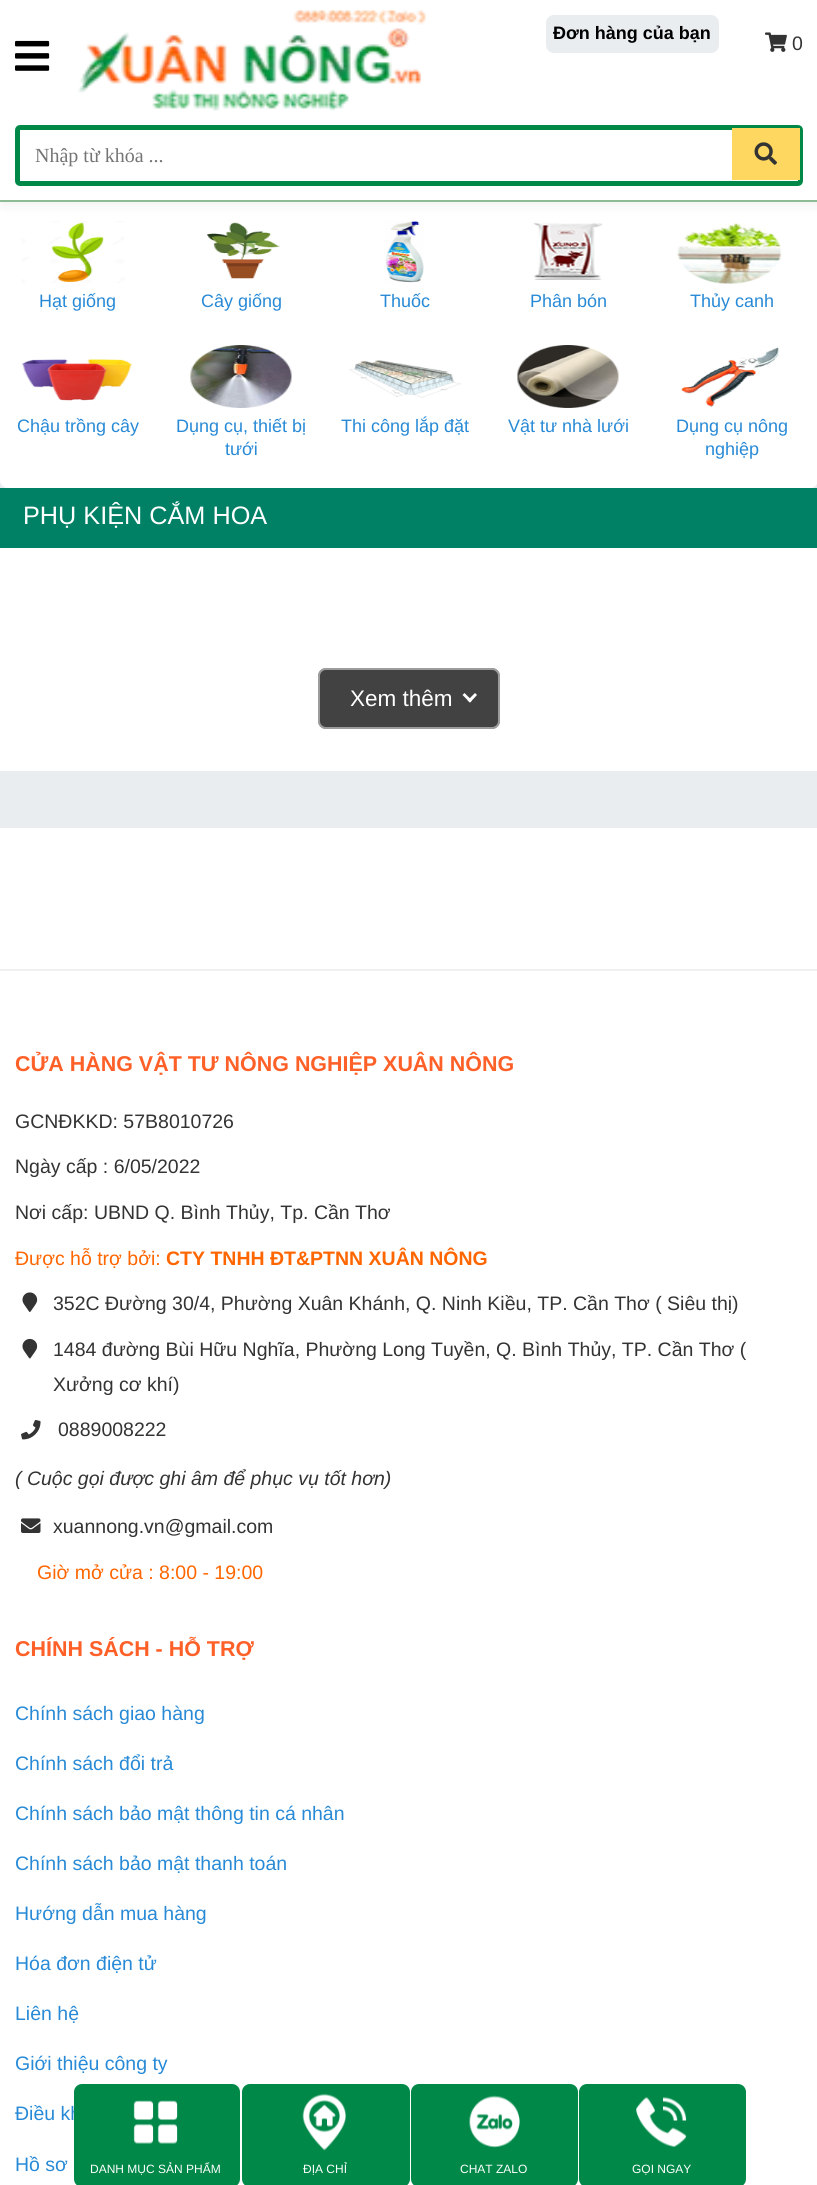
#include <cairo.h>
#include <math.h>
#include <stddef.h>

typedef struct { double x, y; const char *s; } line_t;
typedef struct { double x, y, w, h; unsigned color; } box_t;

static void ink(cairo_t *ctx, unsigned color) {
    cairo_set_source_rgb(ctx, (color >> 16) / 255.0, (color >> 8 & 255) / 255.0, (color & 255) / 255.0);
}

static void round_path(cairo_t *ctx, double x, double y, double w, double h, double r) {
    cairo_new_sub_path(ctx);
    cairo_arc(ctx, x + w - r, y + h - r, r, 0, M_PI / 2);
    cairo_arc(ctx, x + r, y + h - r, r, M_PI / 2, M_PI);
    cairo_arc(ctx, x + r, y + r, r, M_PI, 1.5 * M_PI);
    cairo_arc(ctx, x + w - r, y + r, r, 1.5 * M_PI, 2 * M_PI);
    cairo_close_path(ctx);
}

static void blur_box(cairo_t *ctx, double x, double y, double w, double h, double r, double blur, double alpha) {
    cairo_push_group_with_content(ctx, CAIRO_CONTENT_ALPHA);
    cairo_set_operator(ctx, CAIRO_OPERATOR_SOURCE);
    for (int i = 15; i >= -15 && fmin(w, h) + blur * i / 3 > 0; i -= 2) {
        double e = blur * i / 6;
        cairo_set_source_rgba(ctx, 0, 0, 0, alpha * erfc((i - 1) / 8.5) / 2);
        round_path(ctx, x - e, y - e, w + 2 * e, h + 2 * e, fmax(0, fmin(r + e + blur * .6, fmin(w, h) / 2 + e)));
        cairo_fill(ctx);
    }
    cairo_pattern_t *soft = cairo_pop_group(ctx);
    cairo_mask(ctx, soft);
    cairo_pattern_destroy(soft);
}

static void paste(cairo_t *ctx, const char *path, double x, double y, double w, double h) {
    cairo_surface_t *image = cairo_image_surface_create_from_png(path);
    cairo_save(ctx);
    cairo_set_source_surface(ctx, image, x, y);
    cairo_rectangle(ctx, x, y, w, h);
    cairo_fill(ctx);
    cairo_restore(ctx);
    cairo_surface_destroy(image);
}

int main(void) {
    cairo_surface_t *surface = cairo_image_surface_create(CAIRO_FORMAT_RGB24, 817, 2185);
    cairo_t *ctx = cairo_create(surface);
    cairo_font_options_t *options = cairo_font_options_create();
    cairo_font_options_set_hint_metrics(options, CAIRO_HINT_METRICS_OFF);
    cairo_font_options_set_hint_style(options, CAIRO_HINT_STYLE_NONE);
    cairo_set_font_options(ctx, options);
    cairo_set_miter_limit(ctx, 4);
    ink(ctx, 0xE9EDF0);
    cairo_paint(ctx);
    ink(ctx, 0xFFFFFF);
    round_path(ctx, 0, 161, 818, 327, 8);
    cairo_fill(ctx);
    paste(ctx, "media/5.png", 21, 221, 104, 62);
    paste(ctx, "media/6.png", 207, 222, 73, 57);
    paste(ctx, "media/7.png", 385, 221, 39, 62);
    paste(ctx, "media/8.png", 533, 222, 70, 58);
    paste(ctx, "media/9.png", 677, 223, 105, 61);
    ink(ctx, 0x000000);
    blur_box(ctx, 2, 2, 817, 201, 0, 7.5, 0.08);
    ink(ctx, 0xFFFFFF);
    cairo_rectangle(ctx, 0, 0, 817, 200);
    cairo_fill(ctx);
    paste(ctx, "media/1.png", 15, 40, 35, 31);
    ink(ctx, 0x8EBB96);
    cairo_rectangle(ctx, 0, 200, 817, 2);
    cairo_fill(ctx);
    paste(ctx, "media/2.png", 78, 10, 348, 101);
    ink(ctx, 0xE9EDF0);
    round_path(ctx, 546, 15, 173, 38, 8);
    cairo_fill(ctx);
    cairo_select_font_face(ctx, "Liberation Sans", CAIRO_FONT_SLANT_NORMAL, CAIRO_FONT_WEIGHT_BOLD);
    cairo_set_font_size(ctx, 18);
    ink(ctx, 0x000000);
    cairo_move_to(ctx, 553, 39);
    cairo_show_text(ctx, "Đơn hàng của bạn");
    paste(ctx, "media/3.png", 765, 32, 22, 20);
    cairo_select_font_face(ctx, "Liberation Sans", CAIRO_FONT_SLANT_NORMAL, CAIRO_FONT_WEIGHT_NORMAL);
    cairo_set_font_size(ctx, 19.5);
    ink(ctx, 0x333333);
    cairo_move_to(ctx, 792, 50);
    cairo_show_text(ctx, "0");
    round_path(ctx, 17.5, 127.5, 783, 56, 2.5);
    ink(ctx, 0x008848);
    cairo_set_line_width(ctx, 5);
    cairo_stroke(ctx);
    cairo_select_font_face(ctx, "Liberation Serif", CAIRO_FONT_SLANT_NORMAL, CAIRO_FONT_WEIGHT_NORMAL);
    cairo_set_font_size(ctx, 20);
    ink(ctx, 0x757575);
    cairo_move_to(ctx, 35, 162);
    cairo_show_text(ctx, "Nhập từ khóa ...");
    ink(ctx, 0xFDD75F);
    cairo_rectangle(ctx, 732, 128, 68, 52);
    cairo_fill(ctx);
    paste(ctx, "media/4.png", 754, 142, 23, 23);
    cairo_select_font_face(ctx, "Liberation Sans", CAIRO_FONT_SLANT_NORMAL, CAIRO_FONT_WEIGHT_NORMAL);
    cairo_set_font_size(ctx, 18);
    ink(ctx, 0x288AD6);
    {
        static const line_t items[] = {
            {39, 307, "Hạt giống"},
            {201, 307, "Cây giống"},
            {380, 307, "Thuốc"},
            {530, 307, "Phân bón"},
            {690, 307, "Thủy canh"},
        };
        for (size_t i = 0; i < sizeof items / sizeof *items; i++) {
            cairo_move_to(ctx, items[i].x, items[i].y);
            cairo_show_text(ctx, items[i].s);
        }
    }
    paste(ctx, "media/10.png", 22, 359, 110, 42);
    cairo_move_to(ctx, 17, 432);
    cairo_show_text(ctx, "Chậu trồng cây");
    paste(ctx, "media/11.png", 190, 345, 102, 63);
    cairo_move_to(ctx, 176, 432);
    cairo_show_text(ctx, "Dụng cụ, thiết bị");
    cairo_move_to(ctx, 225, 455);
    cairo_show_text(ctx, "tưới");
    paste(ctx, "media/12.png", 349, 360, 112, 38);
    cairo_move_to(ctx, 341, 432);
    cairo_show_text(ctx, "Thi công lắp đặt");
    paste(ctx, "media/13.png", 517, 345, 102, 63);
    cairo_move_to(ctx, 508, 432);
    cairo_show_text(ctx, "Vật tư nhà lưới");
    paste(ctx, "media/14.png", 681, 346, 98, 61);
    cairo_move_to(ctx, 676, 432);
    cairo_show_text(ctx, "Dụng cụ nông");
    cairo_move_to(ctx, 705, 455);
    cairo_show_text(ctx, "nghiệp");
    ink(ctx, 0x008065);
    cairo_rectangle(ctx, 0, 488, 817, 60);
    cairo_fill(ctx);
    cairo_set_font_size(ctx, 25.25);
    ink(ctx, 0xFFFFFF);
    cairo_move_to(ctx, 23, 524);
    cairo_show_text(ctx, "PHỤ KIỆN CẮM HOA");
    cairo_rectangle(ctx, 0, 548, 817, 223);
    cairo_fill(ctx);
    ink(ctx, 0x424242);
    round_path(ctx, 318, 668, 182, 61, 8);
    cairo_fill(ctx);
    round_path(ctx, 319, 669, 180, 59, 7);
    cairo_set_source_rgba(ctx, 0.914, 0.914, 0.914, 0.54);
    cairo_set_line_width(ctx, 2);
    cairo_stroke(ctx);
    cairo_set_font_size(ctx, 22.5);
    ink(ctx, 0xFFFFFF);
    cairo_move_to(ctx, 350, 706);
    cairo_show_text(ctx, "Xem thêm");
    cairo_new_path(ctx);
    cairo_move_to(ctx, 467.5, 700.5);
    cairo_line_to(ctx, 475, 693);
    cairo_line_to(ctx, 477, 695);
    cairo_line_to(ctx, 470, 702.5);
    cairo_close_path(ctx);
    cairo_fill(ctx);
    cairo_new_path(ctx);
    cairo_move_to(ctx, 462.5, 695);
    cairo_line_to(ctx, 464.5, 693);
    cairo_line_to(ctx, 472, 700.5);
    cairo_line_to(ctx, 470, 702.5);
    cairo_close_path(ctx);
    cairo_fill(ctx);
    {
        static const box_t items[] = {
            {0, 828, 817, 141, 0xFFFFFF},
            {0, 969, 817, 2, 0xF0F0F0},
            {0, 971, 817, 1214, 0xFFFFFF},
        };
        for (size_t i = 0; i < sizeof items / sizeof *items; i++) {
            ink(ctx, items[i].color);
            cairo_rectangle(ctx, items[i].x, items[i].y, items[i].w, items[i].h);
            cairo_fill(ctx);
        }
    }
    cairo_select_font_face(ctx, "Liberation Sans", CAIRO_FONT_SLANT_NORMAL, CAIRO_FONT_WEIGHT_BOLD);
    cairo_set_font_size(ctx, 21.45);
    ink(ctx, 0xFF6028);
    cairo_move_to(ctx, 15, 1071);
    cairo_show_text(ctx, "CỬA HÀNG VẬT TƯ NÔNG NGHIỆP XUÂN NÔNG");
    cairo_select_font_face(ctx, "Liberation Sans", CAIRO_FONT_SLANT_NORMAL, CAIRO_FONT_WEIGHT_NORMAL);
    cairo_set_font_size(ctx, 19.5);
    ink(ctx, 0x333333);
    {
        static const line_t items[] = {
            {15, 1128, "GCNĐKKD: 57B8010726"},
            {15, 1173, "Ngày cấp : 6/05/2022"},
            {15, 1219, "Nơi cấp: UBND Q. Bình Thủy, Tp. Cần Thơ"},
        };
        for (size_t i = 0; i < sizeof items / sizeof *items; i++) {
            cairo_move_to(ctx, items[i].x, items[i].y);
            cairo_show_text(ctx, items[i].s);
        }
    }
    ink(ctx, 0xFF6600);
    cairo_move_to(ctx, 15, 1265);
    cairo_show_text(ctx, "Được hỗ trợ bởi:");
    cairo_select_font_face(ctx, "Liberation Sans", CAIRO_FONT_SLANT_NORMAL, CAIRO_FONT_WEIGHT_BOLD);
    cairo_move_to(ctx, 166, 1265);
    cairo_show_text(ctx, "CTY TNHH ĐT&PTNN XUÂN NÔNG");
    paste(ctx, "media/15.png", 22, 1292, 16, 20);
    cairo_select_font_face(ctx, "Liberation Sans", CAIRO_FONT_SLANT_NORMAL, CAIRO_FONT_WEIGHT_NORMAL);
    ink(ctx, 0x333333);
    cairo_move_to(ctx, 53, 1310);
    cairo_show_text(ctx, "352C Đường 30/4, Phường Xuân Khánh, Q. Ninh Kiều, TP. Cần Thơ ( Siêu thị)");
    paste(ctx, "media/16.png", 22, 1338, 16, 21);
    cairo_move_to(ctx, 53, 1356);
    cairo_show_text(ctx, "1484 đường Bùi Hữu Nghĩa, Phường Long Tuyền, Q. Bình Thủy, TP. Cần Thơ (");
    cairo_move_to(ctx, 53, 1391);
    cairo_show_text(ctx, "Xưởng cơ khí)");
    paste(ctx, "media/17.png", 21, 1420, 20, 20);
    cairo_move_to(ctx, 58, 1436);
    cairo_show_text(ctx, "0889008222");
    cairo_select_font_face(ctx, "Liberation Sans", CAIRO_FONT_SLANT_ITALIC, CAIRO_FONT_WEIGHT_NORMAL);
    cairo_move_to(ctx, 15, 1485);
    cairo_show_text(ctx, "( Cuộc gọi được ghi âm để phục vụ tốt hơn)");
    paste(ctx, "media/18.png", 21, 1518, 20, 15);
    cairo_select_font_face(ctx, "Liberation Sans", CAIRO_FONT_SLANT_NORMAL, CAIRO_FONT_WEIGHT_NORMAL);
    cairo_move_to(ctx, 53, 1533);
    cairo_show_text(ctx, "xuannong.vn@gmail.com");
    ink(ctx, 0xFF6600);
    cairo_move_to(ctx, 37, 1579);
    cairo_show_text(ctx, "Giờ mở cửa : 8:00 - 19:00");
    cairo_select_font_face(ctx, "Liberation Sans", CAIRO_FONT_SLANT_NORMAL, CAIRO_FONT_WEIGHT_BOLD);
    cairo_set_font_size(ctx, 21.45);
    ink(ctx, 0xFF6028);
    cairo_move_to(ctx, 15, 1656);
    cairo_show_text(ctx, "CHÍNH SÁCH - HỖ TRỢ");
    cairo_select_font_face(ctx, "Liberation Sans", CAIRO_FONT_SLANT_NORMAL, CAIRO_FONT_WEIGHT_NORMAL);
    cairo_set_font_size(ctx, 19.5);
    ink(ctx, 0x288AD6);
    {
        static const line_t items[] = {
            {15, 1720, "Chính sách giao hàng"},
            {15, 1770, "Chính sách đổi trả"},
            {15, 1820, "Chính sách bảo mật thông tin cá nhân"},
            {15, 1870, "Chính sách bảo mật thanh toán"},
            {15, 1920, "Hướng dẫn mua hàng"},
            {15, 1970, "Hóa đơn điện tử"},
            {15, 2020, "Liên hệ"},
            {15, 2070, "Giới thiệu công ty"},
            {15, 2120, "Điều kh"},
            {15, 2171, "Hồ sơ"},
        };
        for (size_t i = 0; i < sizeof items / sizeof *items; i++) {
            cairo_move_to(ctx, items[i].x, items[i].y);
            cairo_show_text(ctx, items[i].s);
        }
    }
    ink(ctx, 0x008848);
    round_path(ctx, 74, 2084, 166, 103, 8);
    cairo_fill(ctx);
    paste(ctx, "media/19.png", 133, 2100, 45, 44);
    cairo_set_font_size(ctx, 12);
    ink(ctx, 0xFFFFFF);
    cairo_move_to(ctx, 90, 2173);
    cairo_show_text(ctx, "DANH MỤC SẢN PHẨM");
    ink(ctx, 0x008848);
    round_path(ctx, 242, 2084, 168, 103, 8);
    cairo_fill(ctx);
    paste(ctx, "media/20.png", 302, 2093, 44, 58);
    ink(ctx, 0xFFFFFF);
    cairo_move_to(ctx, 303, 2173);
    cairo_show_text(ctx, "ĐỊA CHỈ");
    ink(ctx, 0x008848);
    round_path(ctx, 411, 2084, 167, 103, 8);
    cairo_fill(ctx);
    paste(ctx, "media/21.png", 469, 2095, 51, 53);
    ink(ctx, 0xFFFFFF);
    cairo_move_to(ctx, 460, 2173);
    cairo_show_text(ctx, "CHAT ZALO");
    ink(ctx, 0x008848);
    round_path(ctx, 579, 2084, 167, 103, 8);
    cairo_fill(ctx);
    paste(ctx, "media/22.png", 636, 2097, 51, 50);
    ink(ctx, 0xFFFFFF);
    cairo_move_to(ctx, 632, 2173);
    cairo_show_text(ctx, "GỌI NGAY");
    cairo_surface_write_to_png(surface, "image.png");
    cairo_font_options_destroy(options);
    cairo_destroy(ctx);
    cairo_surface_destroy(surface);
    return 0;
}
